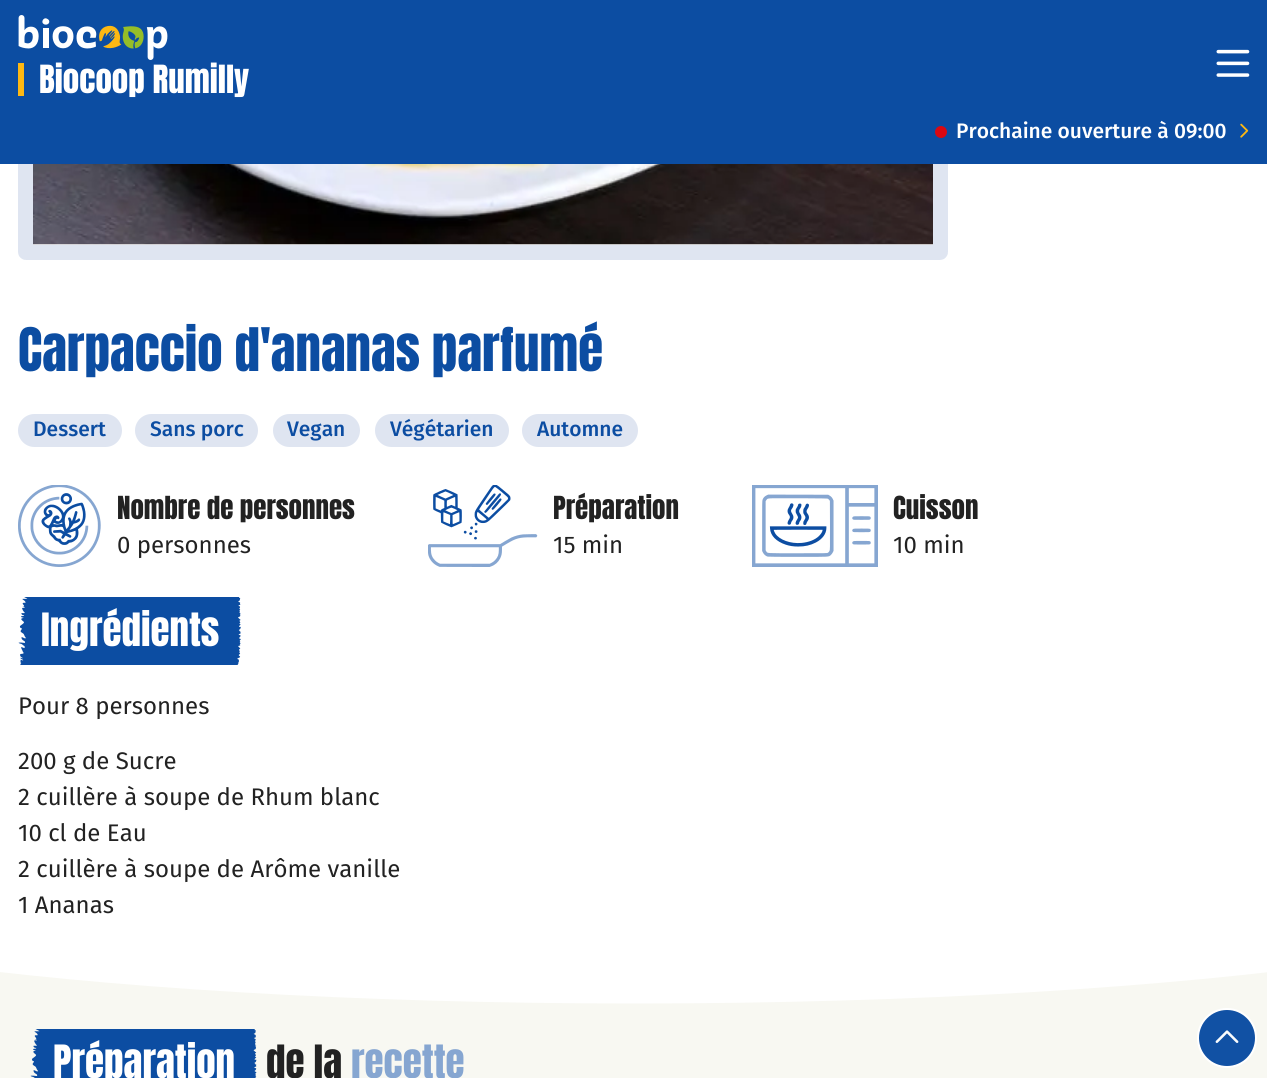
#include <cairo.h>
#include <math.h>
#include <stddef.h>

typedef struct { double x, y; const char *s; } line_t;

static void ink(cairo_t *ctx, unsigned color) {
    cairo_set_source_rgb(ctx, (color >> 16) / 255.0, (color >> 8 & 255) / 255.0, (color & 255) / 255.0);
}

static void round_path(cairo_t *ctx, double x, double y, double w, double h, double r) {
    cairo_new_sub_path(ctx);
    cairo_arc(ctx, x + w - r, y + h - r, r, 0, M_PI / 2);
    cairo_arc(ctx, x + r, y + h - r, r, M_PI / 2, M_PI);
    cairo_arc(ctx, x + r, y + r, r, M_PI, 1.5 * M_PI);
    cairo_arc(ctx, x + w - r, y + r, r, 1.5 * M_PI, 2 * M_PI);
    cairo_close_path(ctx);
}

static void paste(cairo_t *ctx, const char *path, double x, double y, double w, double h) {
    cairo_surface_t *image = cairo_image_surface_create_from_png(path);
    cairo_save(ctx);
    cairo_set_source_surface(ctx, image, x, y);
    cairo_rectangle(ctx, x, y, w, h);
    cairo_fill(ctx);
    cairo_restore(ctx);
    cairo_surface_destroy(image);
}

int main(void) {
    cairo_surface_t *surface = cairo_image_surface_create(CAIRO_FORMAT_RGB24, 1267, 1078);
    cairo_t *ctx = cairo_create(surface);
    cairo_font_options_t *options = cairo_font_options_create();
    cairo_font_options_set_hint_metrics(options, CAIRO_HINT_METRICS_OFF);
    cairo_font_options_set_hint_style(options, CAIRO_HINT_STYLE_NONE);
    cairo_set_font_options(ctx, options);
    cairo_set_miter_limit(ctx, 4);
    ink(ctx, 0xFFFFFF);
    cairo_paint(ctx);
    round_path(ctx, 25.5, -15.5, 915, 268, 0.5);
    ink(ctx, 0xDFE5F1);
    cairo_set_line_width(ctx, 15);
    cairo_stroke(ctx);
    ink(ctx, 0x0C4DA2);
    cairo_rectangle(ctx, 0, 0, 1267, 164);
    cairo_fill(ctx);
    paste(ctx, "media/1.png", 18, 15, 150, 45);
    ink(ctx, 0xFDB813);
    cairo_rectangle(ctx, 18, 63, 6, 33);
    cairo_fill(ctx);
    cairo_select_font_face(ctx, "Anton", CAIRO_FONT_SLANT_NORMAL, CAIRO_FONT_WEIGHT_NORMAL);
    cairo_set_font_size(ctx, 33);
    ink(ctx, 0xFFFFFF);
    cairo_move_to(ctx, 39, 93);
    cairo_show_text(ctx, "Biocoop Rumilly");
    paste(ctx, "media/2.png", 1216, 49, 34, 28);
    ink(ctx, 0xDA0812);
    cairo_arc(ctx, 941, 132, 6, 0, 2 * M_PI);
    cairo_fill(ctx);
    cairo_select_font_face(ctx, "Fira Sans Medium", CAIRO_FONT_SLANT_NORMAL, CAIRO_FONT_WEIGHT_NORMAL);
    cairo_set_font_size(ctx, 21);
    ink(ctx, 0xFFFFFF);
    cairo_move_to(ctx, 956, 138);
    cairo_show_text(ctx, "Prochaine ouverture à 09:00");
    paste(ctx, "media/3.png", 1240, 123, 9, 15);
    ink(ctx, 0xF8F8F2);
    cairo_rectangle(ctx, 0, 972, 1267, 106);
    cairo_fill(ctx);
    ink(ctx, 0x1151A4);
    cairo_arc(ctx, 1227, 1038, 29, 0, 2 * M_PI);
    cairo_fill_preserve(ctx);
    ink(ctx, 0xFFFFFF);
    cairo_set_line_width(ctx, 2);
    cairo_stroke(ctx);
    paste(ctx, "media/4.png", 1215, 1030, 24, 13);
    paste(ctx, "media/5.png", 33, 164, 900, 81);
    cairo_select_font_face(ctx, "Anton", CAIRO_FONT_SLANT_NORMAL, CAIRO_FONT_WEIGHT_NORMAL);
    cairo_set_font_size(ctx, 51);
    ink(ctx, 0x0C4DA2);
    cairo_move_to(ctx, 18, 371);
    cairo_show_text(ctx, "Carpaccio d'ananas parfumé");
    ink(ctx, 0xDFE5F1);
    round_path(ctx, 18, 414, 104, 33, 16.5);
    cairo_fill(ctx);
    cairo_select_font_face(ctx, "Fira Sans Medium", CAIRO_FONT_SLANT_NORMAL, CAIRO_FONT_WEIGHT_NORMAL);
    cairo_set_font_size(ctx, 21);
    ink(ctx, 0x0C4DA2);
    cairo_move_to(ctx, 33, 436);
    cairo_show_text(ctx, "Dessert");
    ink(ctx, 0xDFE5F1);
    round_path(ctx, 135, 414, 123, 33, 16.5);
    cairo_fill(ctx);
    ink(ctx, 0x0C4DA2);
    cairo_move_to(ctx, 150, 436);
    cairo_show_text(ctx, "Sans porc");
    ink(ctx, 0xDFE5F1);
    round_path(ctx, 273, 414, 87, 33, 16.5);
    cairo_fill(ctx);
    ink(ctx, 0x0C4DA2);
    cairo_move_to(ctx, 287, 436);
    cairo_show_text(ctx, "Vegan");
    ink(ctx, 0xDFE5F1);
    round_path(ctx, 375, 414, 134, 33, 16.5);
    cairo_fill(ctx);
    ink(ctx, 0x0C4DA2);
    cairo_move_to(ctx, 390, 436);
    cairo_show_text(ctx, "Végétarien");
    ink(ctx, 0xDFE5F1);
    round_path(ctx, 522, 414, 116, 33, 16.5);
    cairo_fill(ctx);
    ink(ctx, 0x0C4DA2);
    cairo_move_to(ctx, 537, 436);
    cairo_show_text(ctx, "Automne");
    paste(ctx, "media/6.png", 18, 485, 83, 82);
    cairo_select_font_face(ctx, "Anton", CAIRO_FONT_SLANT_NORMAL, CAIRO_FONT_WEIGHT_NORMAL);
    cairo_set_font_size(ctx, 27);
    ink(ctx, 0x222222);
    cairo_move_to(ctx, 117, 519);
    cairo_show_text(ctx, "Nombre de personnes");
    cairo_select_font_face(ctx, "Fira Sans", CAIRO_FONT_SLANT_NORMAL, CAIRO_FONT_WEIGHT_NORMAL);
    cairo_set_font_size(ctx, 24);
    cairo_move_to(ctx, 117, 553);
    cairo_show_text(ctx, "0 personnes");
    paste(ctx, "media/7.png", 428, 485, 110, 82);
    cairo_select_font_face(ctx, "Anton", CAIRO_FONT_SLANT_NORMAL, CAIRO_FONT_WEIGHT_NORMAL);
    cairo_set_font_size(ctx, 27);
    cairo_move_to(ctx, 553, 519);
    cairo_show_text(ctx, "Préparation");
    cairo_select_font_face(ctx, "Fira Sans", CAIRO_FONT_SLANT_NORMAL, CAIRO_FONT_WEIGHT_NORMAL);
    cairo_set_font_size(ctx, 24);
    cairo_move_to(ctx, 553, 553);
    cairo_show_text(ctx, "15 min");
    paste(ctx, "media/8.png", 752, 485, 126, 82);
    cairo_select_font_face(ctx, "Anton", CAIRO_FONT_SLANT_NORMAL, CAIRO_FONT_WEIGHT_NORMAL);
    cairo_set_font_size(ctx, 27);
    cairo_move_to(ctx, 893, 519);
    cairo_show_text(ctx, "Cuisson");
    cairo_select_font_face(ctx, "Fira Sans", CAIRO_FONT_SLANT_NORMAL, CAIRO_FONT_WEIGHT_NORMAL);
    cairo_set_font_size(ctx, 24);
    cairo_move_to(ctx, 893, 553);
    cairo_show_text(ctx, "10 min");
    paste(ctx, "media/9.png", 18, 597, 223, 68);
    cairo_select_font_face(ctx, "Anton", CAIRO_FONT_SLANT_NORMAL, CAIRO_FONT_WEIGHT_NORMAL);
    cairo_set_font_size(ctx, 39);
    ink(ctx, 0xFFFFFF);
    cairo_move_to(ctx, 41, 646);
    cairo_show_text(ctx, "Ingrédients");
    cairo_select_font_face(ctx, "Fira Sans", CAIRO_FONT_SLANT_NORMAL, CAIRO_FONT_WEIGHT_NORMAL);
    cairo_set_font_size(ctx, 24);
    ink(ctx, 0x222222);
    {
        static const line_t items[] = {
            {18, 714, "Pour 8 personnes"},
            {18, 769, "200 g de Sucre"},
            {18, 805, "2 cuillère à soupe de Rhum blanc"},
            {18, 841, "10 cl de Eau"},
            {18, 877, "2 cuillère à soupe de Arôme vanille"},
            {18, 913, "1 Ananas"},
        };
        for (size_t i = 0; i < sizeof items / sizeof *items; i++) {
            cairo_move_to(ctx, items[i].x, items[i].y);
            cairo_show_text(ctx, items[i].s);
        }
    }
    cairo_save(ctx);
    cairo_rectangle(ctx, 0, 924, 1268, 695);
    cairo_clip(ctx);
    ink(ctx, 0xFFFFFF);
    cairo_new_path(ctx);
    cairo_move_to(ctx, 634.5, 718.5);
    cairo_curve_to(ctx, 1194.5, 718.5, 1648.5, 782.5, 1648.5, 861);
    cairo_curve_to(ctx, 1648.5, 939.5, 1194.5, 1003.5, 634.5, 1003.5);
    cairo_curve_to(ctx, 74.5, 1003.5, -379.5, 939.5, -379.5, 861);
    cairo_curve_to(ctx, -379.5, 782.5, 74.5, 718.5, 634.5, 718.5);
    cairo_close_path(ctx);
    cairo_fill(ctx);
    cairo_restore(ctx);
    paste(ctx, "media/10.png", 30, 1029, 227, 49);
    cairo_select_font_face(ctx, "Anton", CAIRO_FONT_SLANT_NORMAL, CAIRO_FONT_WEIGHT_NORMAL);
    cairo_set_font_size(ctx, 39);
    ink(ctx, 0xFFFFFF);
    cairo_move_to(ctx, 53, 1078);
    cairo_show_text(ctx, "Préparation");
    ink(ctx, 0x222222);
    cairo_move_to(ctx, 266, 1078);
    cairo_show_text(ctx, "de la");
    ink(ctx, 0x86A6D1);
    cairo_move_to(ctx, 351, 1078);
    cairo_show_text(ctx, "recette");
    cairo_surface_write_to_png(surface, "image.png");
    cairo_font_options_destroy(options);
    cairo_destroy(ctx);
    cairo_surface_destroy(surface);
    return 0;
}
